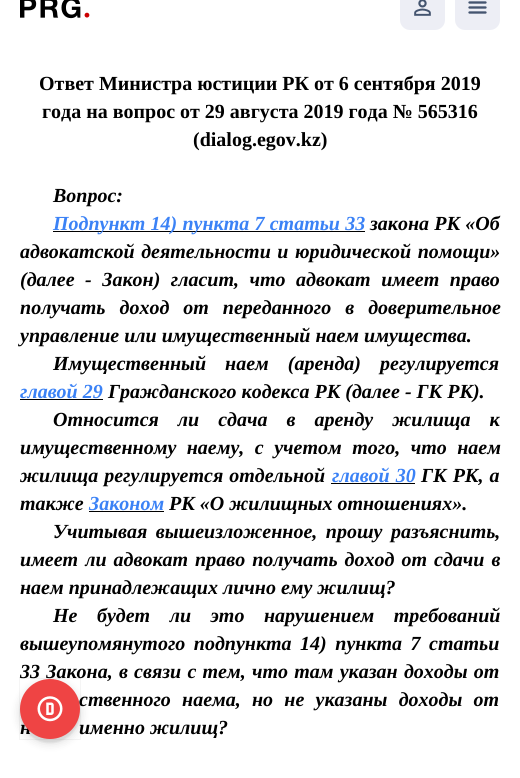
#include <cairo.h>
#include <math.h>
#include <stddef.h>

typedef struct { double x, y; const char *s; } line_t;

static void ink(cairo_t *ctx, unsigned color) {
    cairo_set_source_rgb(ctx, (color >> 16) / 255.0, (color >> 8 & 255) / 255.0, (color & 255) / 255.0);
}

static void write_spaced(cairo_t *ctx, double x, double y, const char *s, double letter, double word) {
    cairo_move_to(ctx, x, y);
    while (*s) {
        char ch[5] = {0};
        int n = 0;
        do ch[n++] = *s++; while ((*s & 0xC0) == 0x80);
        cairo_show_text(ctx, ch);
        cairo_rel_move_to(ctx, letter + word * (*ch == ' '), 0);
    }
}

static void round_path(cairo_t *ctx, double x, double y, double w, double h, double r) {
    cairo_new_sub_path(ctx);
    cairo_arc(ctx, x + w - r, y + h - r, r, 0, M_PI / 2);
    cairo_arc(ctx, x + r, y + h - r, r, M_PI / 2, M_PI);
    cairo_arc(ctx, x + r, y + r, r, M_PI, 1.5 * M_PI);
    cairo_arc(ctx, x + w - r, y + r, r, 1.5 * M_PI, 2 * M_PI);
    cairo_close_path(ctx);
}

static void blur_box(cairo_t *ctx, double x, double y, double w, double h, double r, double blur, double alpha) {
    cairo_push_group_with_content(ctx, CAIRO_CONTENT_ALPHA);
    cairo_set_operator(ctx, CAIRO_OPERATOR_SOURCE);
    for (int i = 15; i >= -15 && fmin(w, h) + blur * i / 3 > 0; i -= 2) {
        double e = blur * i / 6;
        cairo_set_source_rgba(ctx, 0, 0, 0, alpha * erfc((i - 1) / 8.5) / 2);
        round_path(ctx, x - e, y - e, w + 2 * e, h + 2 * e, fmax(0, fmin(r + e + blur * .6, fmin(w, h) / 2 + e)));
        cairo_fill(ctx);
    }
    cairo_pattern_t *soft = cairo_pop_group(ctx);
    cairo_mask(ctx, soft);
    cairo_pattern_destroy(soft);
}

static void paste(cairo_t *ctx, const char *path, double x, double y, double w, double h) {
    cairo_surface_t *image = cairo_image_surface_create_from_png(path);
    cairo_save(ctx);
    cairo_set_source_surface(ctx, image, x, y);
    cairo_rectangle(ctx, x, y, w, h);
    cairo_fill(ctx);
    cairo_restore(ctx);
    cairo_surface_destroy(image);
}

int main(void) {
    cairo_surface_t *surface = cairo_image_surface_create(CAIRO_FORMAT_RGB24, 520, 778);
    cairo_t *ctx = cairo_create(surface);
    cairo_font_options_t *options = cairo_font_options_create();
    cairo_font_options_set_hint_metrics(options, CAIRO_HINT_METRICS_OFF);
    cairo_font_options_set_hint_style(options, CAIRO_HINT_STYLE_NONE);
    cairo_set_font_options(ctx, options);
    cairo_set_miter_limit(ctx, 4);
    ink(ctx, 0xFFFFFF);
    cairo_paint(ctx);
    paste(ctx, "media/1.png", 20, 0, 70, 19);
    ink(ctx, 0xEDEEF5);
    round_path(ctx, 400, -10, 45, 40, 10);
    cairo_fill(ctx);
    paste(ctx, "media/2.png", 414, 0, 17, 16);
    round_path(ctx, 455, -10, 45, 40, 10);
    cairo_fill(ctx);
    cairo_new_path(ctx);
    cairo_move_to(ctx, 469.5, 2.5);
    cairo_line_to(ctx, 485.5, 2.5);
    cairo_move_to(ctx, 469.5, 7.5);
    cairo_line_to(ctx, 485.5, 7.5);
    cairo_move_to(ctx, 469.5, 12.5);
    cairo_line_to(ctx, 485.5, 12.5);
    ink(ctx, 0x44546F);
    cairo_set_line_width(ctx, 2.3);
    cairo_set_line_cap(ctx, CAIRO_LINE_CAP_ROUND);
    cairo_stroke(ctx);
    cairo_select_font_face(ctx, "Liberation Serif", CAIRO_FONT_SLANT_NORMAL, CAIRO_FONT_WEIGHT_BOLD);
    cairo_set_font_size(ctx, 20);
    ink(ctx, 0x000000);
    {
        static const line_t items[] = {
            {39, 90, "Ответ Министра юстиции РК от 6 сентября 2019"},
            {42, 118, "года на вопрос от 29 августа 2019 года № 565316"},
            {193, 146, "(dialog.egov.kz)"},
        };
        for (size_t i = 0; i < sizeof items / sizeof *items; i++) {
            cairo_move_to(ctx, items[i].x, items[i].y);
            cairo_show_text(ctx, items[i].s);
        }
    }
    cairo_select_font_face(ctx, "Liberation Serif", CAIRO_FONT_SLANT_ITALIC, CAIRO_FONT_WEIGHT_BOLD);
    cairo_move_to(ctx, 53, 202);
    cairo_show_text(ctx, "Вопрос:");
    cairo_rectangle(ctx, 53, 231, 312, 1);
    cairo_fill(ctx);
    ink(ctx, 0x3B82F6);
    write_spaced(ctx, 53, 230, "Подпункт 14) пункта 7 статьи 33", 0, 0.25);
    ink(ctx, 0x000000);
    write_spaced(ctx, 370, 230, "закона РК «Об", 0, 0.25);
    write_spaced(ctx, 20, 258, "адвокатской деятельности и юридической помощи»", 0, 1.5);
    write_spaced(ctx, 20, 286, "(далее - Закон) гласит, что адвокат имеет право", 0, 5.5);
    write_spaced(ctx, 20, 314, "получать доход от переданного в доверительное", 0, 9);
    cairo_move_to(ctx, 20, 342);
    cairo_show_text(ctx, "управление или имущественный наем имущества.");
    write_spaced(ctx, 53, 370, "Имущественный наем (аренда) регулируется", 0, 14);
    ink(ctx, 0x3B82F6);
    cairo_move_to(ctx, 20, 398);
    cairo_show_text(ctx, "главой 29");
    ink(ctx, 0x000000);
    cairo_rectangle(ctx, 20, 399, 83, 1);
    cairo_fill(ctx);
    cairo_move_to(ctx, 108, 398);
    cairo_show_text(ctx, "Гражданского кодекса РК (далее - ГК РК).");
    write_spaced(ctx, 53, 426, "Относится ли сдача в аренду жилища к", 0, 14);
    write_spaced(ctx, 20, 454, "имущественному наему, с учетом того, что наем", 0, 5.5);
    write_spaced(ctx, 20, 482, "жилища регулируется отдельной", 0, 1);
    ink(ctx, 0x3B82F6);
    write_spaced(ctx, 332, 482, "главой 30", 0, 1);
    ink(ctx, 0x000000);
    cairo_rectangle(ctx, 331, 483, 84, 1);
    cairo_fill(ctx);
    write_spaced(ctx, 421, 482, "ГК РК, а", 0, 1);
    cairo_move_to(ctx, 20, 510);
    cairo_show_text(ctx, "также");
    ink(ctx, 0x3B82F6);
    cairo_move_to(ctx, 89, 510);
    cairo_show_text(ctx, "Законом");
    ink(ctx, 0x000000);
    cairo_rectangle(ctx, 89, 511, 75, 1);
    cairo_fill(ctx);
    cairo_move_to(ctx, 169, 510);
    cairo_show_text(ctx, "РК «О жилищных отношениях».");
    write_spaced(ctx, 53, 538, "Учитывая вышеизложенное, прошу разъяснить,", 0, 3.5);
    write_spaced(ctx, 20, 566, "имеет ли адвокат право получать доход от сдачи в", 0, 2);
    cairo_move_to(ctx, 20, 594);
    cairo_show_text(ctx, "наем принадлежащих лично ему жилищ?");
    write_spaced(ctx, 53, 622, "Не будет ли это нарушением требований", 0, 14.5);
    write_spaced(ctx, 20, 650, "вышеупомянутого подпункта 14) пункта 7 статьи", 0, 3.5);
    write_spaced(ctx, 20, 678, "33 Закона, в связи с тем, что там указан доходы от", 0, 1.25);
    write_spaced(ctx, 79, 706, "ственного наема, но не указаны доходы от", 0, 6.25);
    cairo_move_to(ctx, 20, 734);
    cairo_show_text(ctx, "н");
    cairo_move_to(ctx, 79, 734);
    cairo_show_text(ctx, "именно жилищ?");
    cairo_rectangle(ctx, 19.5, 678.5, 61, 61);
    cairo_set_source_rgba(ctx, 0, 0, 0, 0.04);
    cairo_set_line_width(ctx, 1);
    cairo_set_line_cap(ctx, CAIRO_LINE_CAP_BUTT);
    cairo_stroke(ctx);
    ink(ctx, 0x000000);
    blur_box(ctx, 20, 683, 60, 60, 30, 5, 0.15);
    blur_box(ctx, 20, 683, 60, 60, 30, 0.5, 0.06);
    ink(ctx, 0xEF4444);
    cairo_arc(ctx, 50, 709, 30, 0, 2 * M_PI);
    cairo_fill(ctx);
    paste(ctx, "media/3.png", 37, 696, 26, 26);
    cairo_surface_write_to_png(surface, "image.png");
    cairo_font_options_destroy(options);
    cairo_destroy(ctx);
    cairo_surface_destroy(surface);
    return 0;
}
